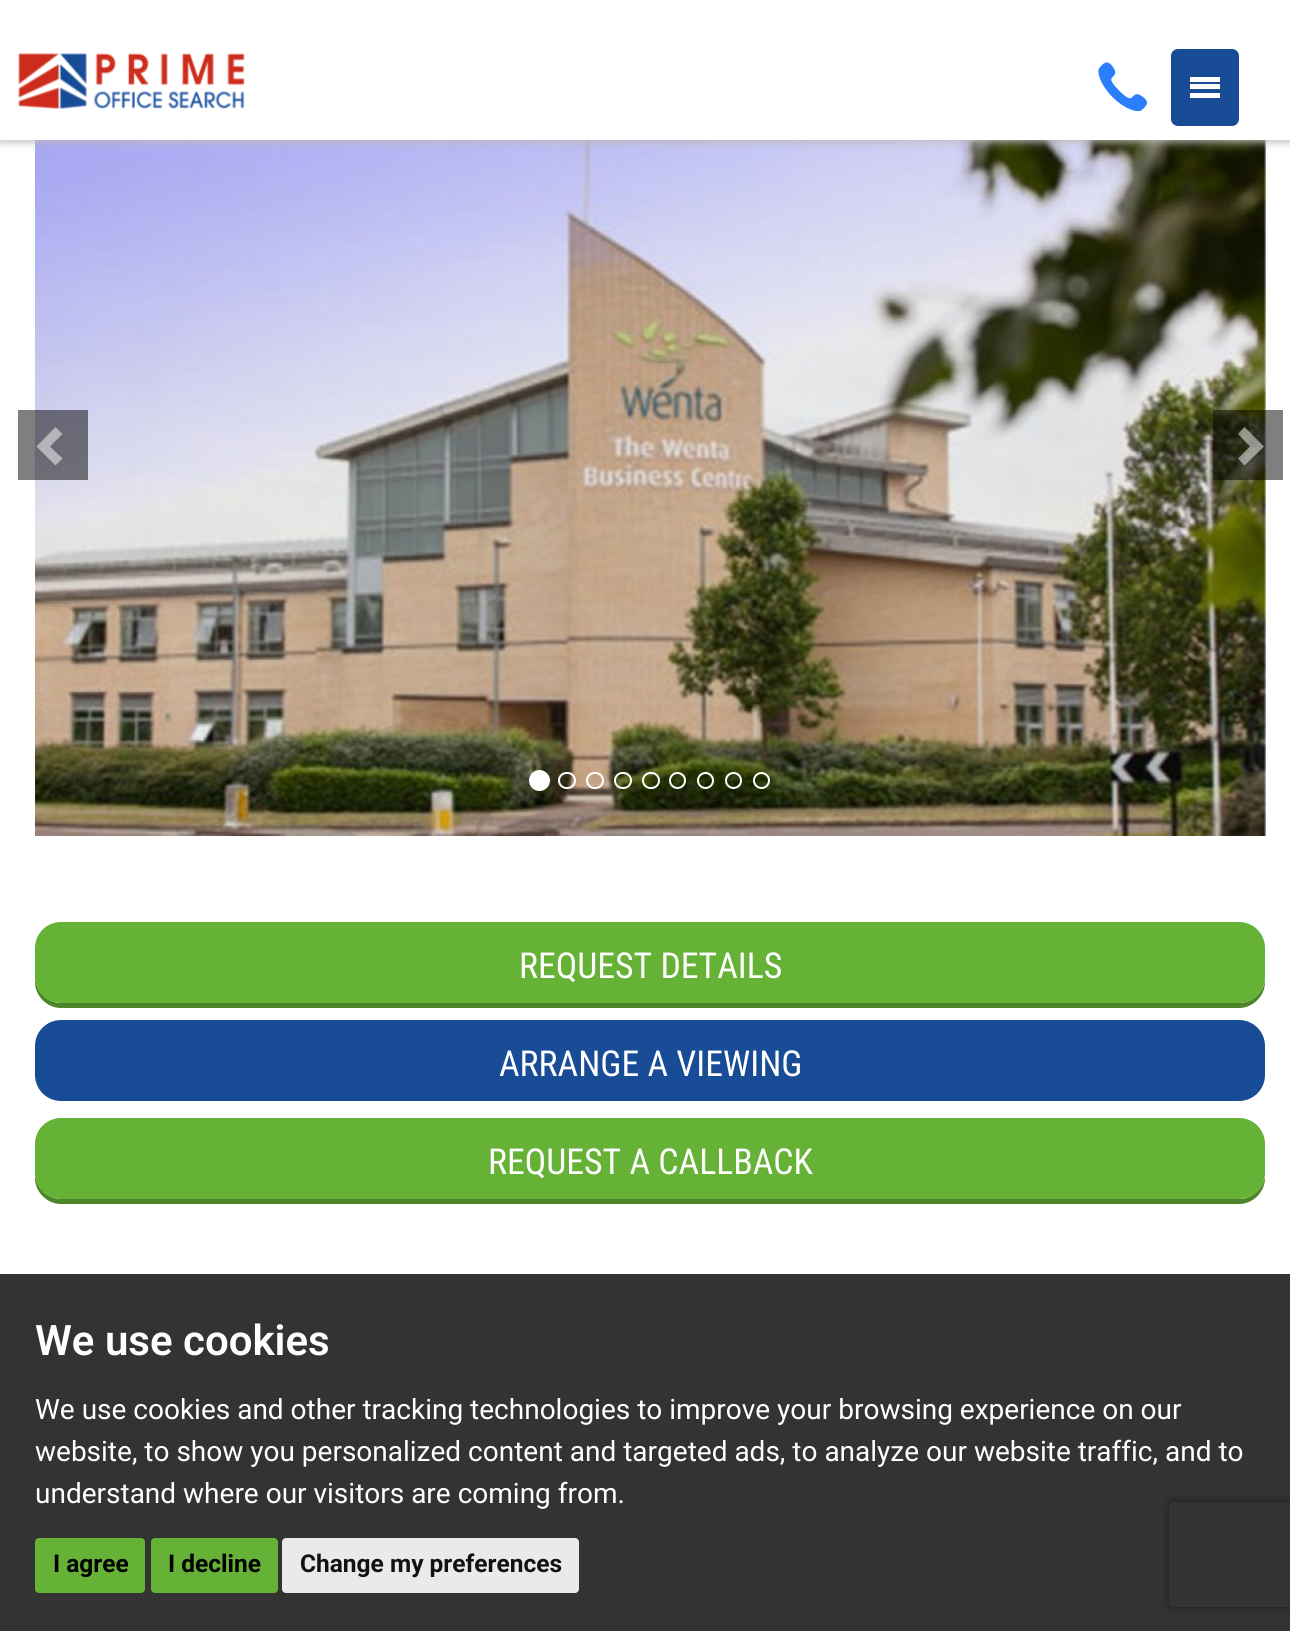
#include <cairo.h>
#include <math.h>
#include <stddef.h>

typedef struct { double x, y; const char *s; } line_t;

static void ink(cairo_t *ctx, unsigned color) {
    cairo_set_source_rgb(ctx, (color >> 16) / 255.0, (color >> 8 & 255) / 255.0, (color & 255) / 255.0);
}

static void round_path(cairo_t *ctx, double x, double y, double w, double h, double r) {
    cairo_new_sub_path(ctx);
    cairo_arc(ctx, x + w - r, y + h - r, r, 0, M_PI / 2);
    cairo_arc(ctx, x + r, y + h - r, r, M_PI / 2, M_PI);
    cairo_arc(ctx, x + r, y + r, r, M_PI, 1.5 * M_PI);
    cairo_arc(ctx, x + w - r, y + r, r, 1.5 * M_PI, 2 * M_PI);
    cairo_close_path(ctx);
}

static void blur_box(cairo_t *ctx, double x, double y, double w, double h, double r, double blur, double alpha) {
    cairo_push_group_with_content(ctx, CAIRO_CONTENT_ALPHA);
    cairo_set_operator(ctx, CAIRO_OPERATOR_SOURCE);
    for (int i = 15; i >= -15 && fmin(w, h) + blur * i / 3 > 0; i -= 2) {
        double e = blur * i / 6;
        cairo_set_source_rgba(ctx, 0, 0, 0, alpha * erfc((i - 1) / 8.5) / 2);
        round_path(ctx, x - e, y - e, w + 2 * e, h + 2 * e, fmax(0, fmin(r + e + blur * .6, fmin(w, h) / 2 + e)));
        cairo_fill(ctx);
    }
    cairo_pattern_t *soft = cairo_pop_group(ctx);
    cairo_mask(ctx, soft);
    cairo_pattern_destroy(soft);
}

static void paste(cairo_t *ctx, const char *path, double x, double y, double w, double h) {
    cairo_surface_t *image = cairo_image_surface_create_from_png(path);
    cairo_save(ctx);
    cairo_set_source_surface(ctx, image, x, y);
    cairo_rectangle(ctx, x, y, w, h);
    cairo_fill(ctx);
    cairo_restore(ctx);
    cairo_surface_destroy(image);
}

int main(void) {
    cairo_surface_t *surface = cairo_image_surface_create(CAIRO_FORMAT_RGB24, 1290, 1631);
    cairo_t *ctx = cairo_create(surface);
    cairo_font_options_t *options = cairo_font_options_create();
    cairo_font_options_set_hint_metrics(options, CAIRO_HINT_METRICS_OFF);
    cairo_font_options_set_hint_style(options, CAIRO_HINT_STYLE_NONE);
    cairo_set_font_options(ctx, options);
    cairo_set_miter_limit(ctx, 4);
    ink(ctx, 0xFFFFFF);
    cairo_paint(ctx);
    paste(ctx, "media/3.png", 35, 140, 1231, 696);
    ink(ctx, 0xBDBBBD);
    blur_box(ctx, 0, 2, 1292, 140, 0, 4.5, 1);
    ink(ctx, 0xFFFFFF);
    cairo_rectangle(ctx, 0, 0, 1290, 140);
    cairo_fill(ctx);
    paste(ctx, "media/1.png", 17, 52, 228, 57);
    paste(ctx, "media/2.png", 1098, 62, 49, 50);
    ink(ctx, 0x194C96);
    round_path(ctx, 1172, 50, 66, 75, 6);
    cairo_fill_preserve(ctx);
    cairo_stroke(ctx);
    ink(ctx, 0xFFFFFF);
    cairo_rectangle(ctx, 1190, 93, 30, 5);
    cairo_fill(ctx);
    cairo_rectangle(ctx, 1190, 84, 30, 5);
    cairo_fill(ctx);
    cairo_rectangle(ctx, 1190, 77, 30, 5);
    cairo_fill(ctx);
    cairo_set_source_rgba(ctx, 0, 0, 0, 0.5);
    cairo_rectangle(ctx, 18, 410, 70, 70);
    cairo_fill(ctx);
    cairo_set_source_rgba(ctx, 1, 1, 1, 0.5);
    cairo_new_path(ctx);
    cairo_move_to(ctx, 62.5, 434);
    cairo_line_to(ctx, 50, 446.5);
    cairo_line_to(ctx, 62.5, 458.5);
    cairo_line_to(ctx, 55.5, 465.5);
    cairo_line_to(ctx, 36.5, 446.5);
    cairo_line_to(ctx, 55.5, 427);
    cairo_close_path(ctx);
    cairo_fill(ctx);
    cairo_set_source_rgba(ctx, 0, 0, 0, 0.5);
    cairo_rectangle(ctx, 1213, 410, 70, 70);
    cairo_fill(ctx);
    cairo_set_source_rgba(ctx, 1, 1, 1, 0.5);
    cairo_new_path(ctx);
    cairo_move_to(ctx, 1264, 446.5);
    cairo_line_to(ctx, 1244.5, 465.5);
    cairo_line_to(ctx, 1238, 458.5);
    cairo_line_to(ctx, 1250, 446.5);
    cairo_line_to(ctx, 1238, 434);
    cairo_line_to(ctx, 1244.5, 427);
    cairo_close_path(ctx);
    cairo_fill(ctx);
    ink(ctx, 0xFFFFFF);
    cairo_arc(ctx, 539.5, 780.5, 9.5, 0, 2 * M_PI);
    cairo_fill_preserve(ctx);
    cairo_stroke(ctx);
    round_path(ctx, 559, 773, 16, 15, 7.5);
    cairo_stroke(ctx);
    round_path(ctx, 587, 773, 16, 15, 7.5);
    cairo_stroke(ctx);
    round_path(ctx, 615, 773, 16, 15, 7.5);
    cairo_stroke(ctx);
    round_path(ctx, 643, 773, 16, 15, 7.5);
    cairo_stroke(ctx);
    cairo_arc(ctx, 677.5, 780.5, 7.5, 0, 2 * M_PI);
    cairo_stroke(ctx);
    cairo_arc(ctx, 705.5, 780.5, 7.5, 0, 2 * M_PI);
    cairo_stroke(ctx);
    cairo_arc(ctx, 733.5, 780.5, 7.5, 0, 2 * M_PI);
    cairo_stroke(ctx);
    cairo_arc(ctx, 761.5, 780.5, 7.5, 0, 2 * M_PI);
    cairo_stroke(ctx);
    ink(ctx, 0x4D852A);
    cairo_new_path(ctx);
    cairo_move_to(ctx, 35, 976);
    cairo_line_to(ctx, 35, 982);
    cairo_curve_to(ctx, 35, 996, 47, 1008, 61, 1008);
    cairo_line_to(ctx, 1239, 1008);
    cairo_curve_to(ctx, 1253, 1008, 1265, 996, 1265, 982);
    cairo_line_to(ctx, 1265, 980);
    cairo_curve_to(ctx, 1263, 993, 1252, 1003, 1239, 1003);
    cairo_line_to(ctx, 61, 1003);
    cairo_curve_to(ctx, 47, 1003, 35, 991, 35, 976);
    cairo_close_path(ctx);
    cairo_fill(ctx);
    ink(ctx, 0x65B236);
    round_path(ctx, 35, 922, 1230, 81, 26);
    cairo_fill(ctx);
    cairo_select_font_face(ctx, "Roboto Condensed", CAIRO_FONT_SLANT_NORMAL, CAIRO_FONT_WEIGHT_NORMAL);
    cairo_set_font_size(ctx, 35.75);
    ink(ctx, 0xFFFFFF);
    cairo_move_to(ctx, 519, 978);
    cairo_show_text(ctx, "REQUEST DETAILS");
    ink(ctx, 0x194C96);
    round_path(ctx, 35, 1020, 1230, 81, 26);
    cairo_fill(ctx);
    ink(ctx, 0xFFFFFF);
    cairo_move_to(ctx, 499, 1076);
    cairo_show_text(ctx, "ARRANGE A VIEWING");
    ink(ctx, 0x4D852A);
    cairo_new_path(ctx);
    cairo_move_to(ctx, 35, 1172);
    cairo_line_to(ctx, 35, 1178);
    cairo_curve_to(ctx, 35, 1192, 47, 1204, 61, 1204);
    cairo_line_to(ctx, 1239, 1204);
    cairo_curve_to(ctx, 1253, 1204, 1265, 1192, 1265, 1178);
    cairo_line_to(ctx, 1265, 1176);
    cairo_curve_to(ctx, 1263, 1189, 1252, 1199, 1239, 1199);
    cairo_line_to(ctx, 61, 1199);
    cairo_curve_to(ctx, 47, 1199, 35, 1187, 35, 1172);
    cairo_close_path(ctx);
    cairo_fill(ctx);
    ink(ctx, 0x65B236);
    round_path(ctx, 35, 1118, 1230, 81, 26);
    cairo_fill(ctx);
    ink(ctx, 0xFFFFFF);
    cairo_move_to(ctx, 488, 1174);
    cairo_show_text(ctx, "REQUEST A CALLBACK");
    cairo_save(ctx);
    cairo_set_fill_rule(ctx, CAIRO_FILL_RULE_EVEN_ODD);
    cairo_new_path(ctx);
    cairo_move_to(ctx, 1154, 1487);
    cairo_line_to(ctx, 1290, 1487);
    cairo_line_to(ctx, 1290, 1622);
    cairo_line_to(ctx, 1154, 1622);
    cairo_close_path(ctx);
    cairo_move_to(ctx, 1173, 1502);
    cairo_line_to(ctx, 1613, 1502);
    cairo_curve_to(ctx, 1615, 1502, 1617, 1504, 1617, 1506);
    cairo_line_to(ctx, 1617, 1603);
    cairo_curve_to(ctx, 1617, 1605, 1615, 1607, 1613, 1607);
    cairo_line_to(ctx, 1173, 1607);
    cairo_curve_to(ctx, 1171, 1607, 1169, 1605, 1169, 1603);
    cairo_line_to(ctx, 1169, 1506);
    cairo_curve_to(ctx, 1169, 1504, 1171, 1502, 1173, 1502);
    cairo_close_path(ctx);
    cairo_clip(ctx);
    ink(ctx, 0x808080);
    blur_box(ctx, 1169, 1502, 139, 105, 4, 4.5, 1);
    cairo_restore(ctx);
    cairo_set_source_rgba(ctx, 0, 0, 0, 0.8);
    cairo_rectangle(ctx, 0, 1274, 1290, 357);
    cairo_fill(ctx);
    cairo_select_font_face(ctx, "Roboto SemiBold", CAIRO_FONT_SLANT_NORMAL, CAIRO_FONT_WEIGHT_NORMAL);
    cairo_set_font_size(ctx, 42);
    ink(ctx, 0xFFFFFF);
    cairo_move_to(ctx, 35, 1355);
    cairo_show_text(ctx, "We use cookies");
    cairo_select_font_face(ctx, "Roboto", CAIRO_FONT_SLANT_NORMAL, CAIRO_FONT_WEIGHT_NORMAL);
    cairo_set_font_size(ctx, 28);
    {
        static const line_t items[] = {
            {35, 1419, "We use cookies and other tracking technologies to improve your browsing experience on our"},
            {35, 1461, "website, to show you personalized content and targeted ads, to analyze our website traffic, and to"},
            {35, 1503, "understand where our visitors are coming from."},
        };
        for (size_t i = 0; i < sizeof items / sizeof *items; i++) {
            cairo_move_to(ctx, items[i].x, items[i].y);
            cairo_show_text(ctx, items[i].s);
        }
    }
    ink(ctx, 0x65B236);
    round_path(ctx, 35, 1538, 110, 55, 4);
    cairo_fill(ctx);
    cairo_select_font_face(ctx, "Roboto", CAIRO_FONT_SLANT_NORMAL, CAIRO_FONT_WEIGHT_BOLD);
    cairo_set_font_size(ctx, 24.5);
    ink(ctx, 0x000000);
    cairo_move_to(ctx, 53, 1572);
    cairo_show_text(ctx, "I agree");
    ink(ctx, 0x65B236);
    round_path(ctx, 151, 1538, 127, 55, 4);
    cairo_fill(ctx);
    ink(ctx, 0x000000);
    cairo_move_to(ctx, 168, 1572);
    cairo_show_text(ctx, "I decline");
    ink(ctx, 0xEAEAEA);
    round_path(ctx, 282, 1538, 297, 55, 4);
    cairo_fill(ctx);
    ink(ctx, 0x111111);
    cairo_move_to(ctx, 300, 1572);
    cairo_show_text(ctx, "Change my preferences");
    cairo_surface_write_to_png(surface, "image.png");
    cairo_font_options_destroy(options);
    cairo_destroy(ctx);
    cairo_surface_destroy(surface);
    return 0;
}
